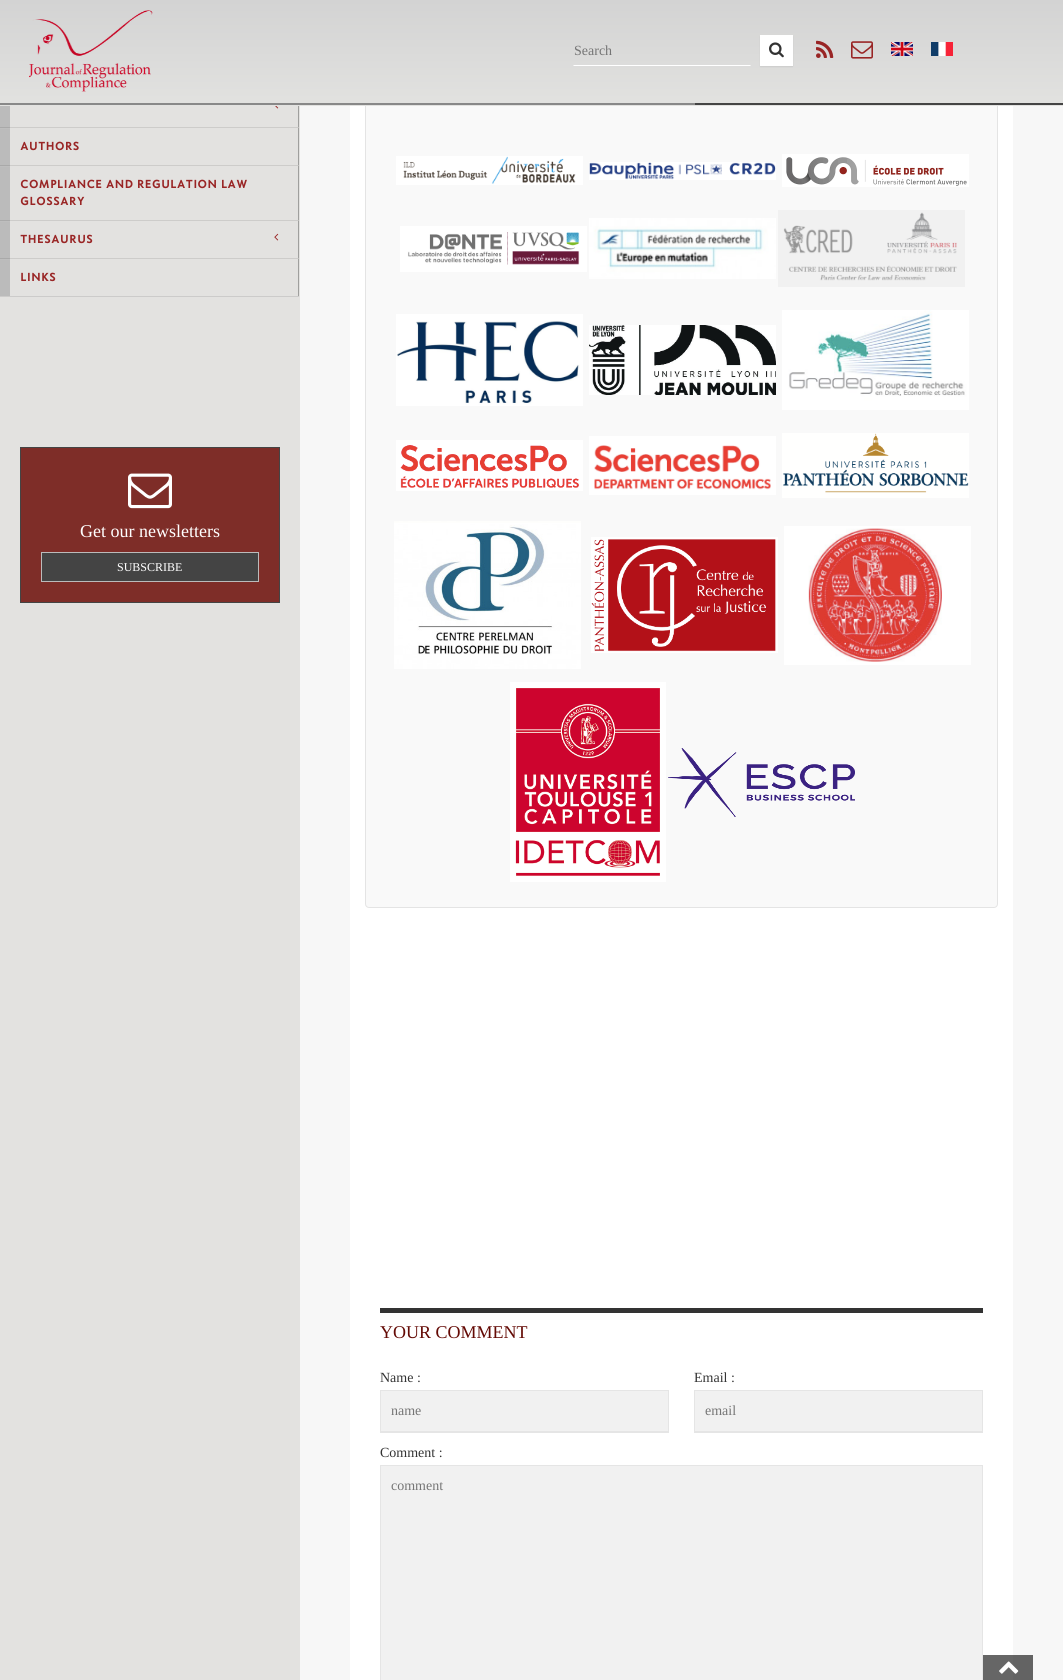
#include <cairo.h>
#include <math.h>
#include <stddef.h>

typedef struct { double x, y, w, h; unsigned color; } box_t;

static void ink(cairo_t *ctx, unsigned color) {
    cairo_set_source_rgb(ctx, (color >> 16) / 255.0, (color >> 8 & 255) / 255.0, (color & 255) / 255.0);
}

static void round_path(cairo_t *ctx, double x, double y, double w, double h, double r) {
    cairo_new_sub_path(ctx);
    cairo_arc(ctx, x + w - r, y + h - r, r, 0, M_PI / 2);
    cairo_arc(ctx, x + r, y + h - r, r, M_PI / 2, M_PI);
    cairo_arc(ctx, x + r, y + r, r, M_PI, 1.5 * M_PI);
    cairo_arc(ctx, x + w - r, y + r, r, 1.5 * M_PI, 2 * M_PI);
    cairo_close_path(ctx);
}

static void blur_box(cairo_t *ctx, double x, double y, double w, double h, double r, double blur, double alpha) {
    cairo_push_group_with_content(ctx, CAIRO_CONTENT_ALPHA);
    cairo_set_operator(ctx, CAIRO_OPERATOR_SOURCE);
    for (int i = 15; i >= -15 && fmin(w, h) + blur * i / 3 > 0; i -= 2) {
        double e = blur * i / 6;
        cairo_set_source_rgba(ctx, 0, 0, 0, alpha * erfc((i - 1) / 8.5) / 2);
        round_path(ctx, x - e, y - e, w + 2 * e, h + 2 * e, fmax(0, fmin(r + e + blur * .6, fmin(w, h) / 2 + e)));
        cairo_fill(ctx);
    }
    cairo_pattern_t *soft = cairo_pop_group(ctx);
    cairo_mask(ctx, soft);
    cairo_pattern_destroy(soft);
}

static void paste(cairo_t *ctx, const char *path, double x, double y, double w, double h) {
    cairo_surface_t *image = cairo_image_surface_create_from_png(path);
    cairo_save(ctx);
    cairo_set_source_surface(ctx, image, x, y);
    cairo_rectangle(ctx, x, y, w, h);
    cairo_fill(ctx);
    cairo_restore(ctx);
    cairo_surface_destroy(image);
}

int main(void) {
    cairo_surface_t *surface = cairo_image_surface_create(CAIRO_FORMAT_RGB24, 1063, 1680);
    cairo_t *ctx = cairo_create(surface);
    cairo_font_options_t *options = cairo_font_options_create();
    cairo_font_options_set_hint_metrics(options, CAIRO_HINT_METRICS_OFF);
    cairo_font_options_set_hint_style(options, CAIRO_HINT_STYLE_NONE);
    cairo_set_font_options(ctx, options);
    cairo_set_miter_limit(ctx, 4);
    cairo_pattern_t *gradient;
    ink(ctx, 0xF7F7F7);
    cairo_paint(ctx);
    ink(ctx, 0x636363);
    cairo_rectangle(ctx, 1013, 1655, 20, 25);
    cairo_fill(ctx);
    ink(ctx, 0xE3E2E0);
    cairo_rectangle(ctx, 0, 106, 300, 1574);
    cairo_fill(ctx);
    ink(ctx, 0x9F9F9D);
    cairo_new_path(ctx);
    cairo_move_to(ctx, 299, 88);
    cairo_line_to(ctx, 299, 127);
    cairo_line_to(ctx, 298, 127);
    cairo_line_to(ctx, 298, 89);
    cairo_close_path(ctx);
    cairo_fill(ctx);
    ink(ctx, 0xFFFFFF);
    cairo_rectangle(ctx, 350, 106, 663, 1574);
    cairo_fill(ctx);
    ink(ctx, 0xF9F9F9);
    round_path(ctx, 365.5, -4.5, 632, 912, 3.5);
    cairo_fill_preserve(ctx);
    ink(ctx, 0xE4E4E4);
    cairo_set_line_width(ctx, 1);
    cairo_stroke(ctx);
    gradient = cairo_pattern_create_linear(532, 0, 532, 106);
    cairo_pattern_add_color_stop_rgba(gradient, 0, 0.827, 0.827, 0.827, 1);
    cairo_pattern_add_color_stop_rgba(gradient, 1, 0.886, 0.886, 0.878, 1);
    cairo_set_source(ctx, gradient);
    cairo_pattern_destroy(gradient);
    cairo_rectangle(ctx, 0, 0, 1063, 106);
    cairo_fill(ctx);
    paste(ctx, "media/1.png", 29, 10, 124, 82);
    ink(ctx, 0xFFFFFF);
    cairo_new_path(ctx);
    cairo_move_to(ctx, 751, 66);
    cairo_line_to(ctx, 573, 66);
    cairo_line_to(ctx, 574, 65);
    cairo_line_to(ctx, 750, 65);
    cairo_close_path(ctx);
    cairo_fill(ctx);
    cairo_select_font_face(ctx, "Liberation Serif", CAIRO_FONT_SLANT_NORMAL, CAIRO_FONT_WEIGHT_NORMAL);
    cairo_set_font_size(ctx, 14);
    ink(ctx, 0x757575);
    cairo_move_to(ctx, 574, 55);
    cairo_show_text(ctx, "Search");
    ink(ctx, 0x000000);
    blur_box(ctx, 760, 36, 33, 31, 0, 0.5, 0.07);
    ink(ctx, 0xFFFFFF);
    cairo_rectangle(ctx, 760, 35, 33, 31);
    cairo_fill(ctx);
    paste(ctx, "media/2.png", 769, 42, 15, 16);
    paste(ctx, "media/3.png", 816, 40, 18, 18);
    paste(ctx, "media/4.png", 851, 41, 22, 18);
    paste(ctx, "media/5.png", 891, 42, 22, 14);
    paste(ctx, "media/6.png", 931, 42, 22, 14);
    {
        static const box_t items[] = {
            {695, 103, 368, 2, 0x444444},
            {0, 103, 695, 2, 0x888888},
            {0, 106, 10, 190, 0xBBBBBB},
            {0, 259, 10, 1, 0xBEBEBE},
            {0, 221, 10, 1, 0xBEBEBE},
            {0, 166, 10, 1, 0xBEBEBE},
            {0, 128, 10, 1, 0xBEBEBE},
            {0, 296, 299, 1, 0xCCCBCA},
        };
        for (size_t i = 0; i < sizeof items / sizeof *items; i++) {
            ink(ctx, items[i].color);
            cairo_rectangle(ctx, items[i].x, items[i].y, items[i].w, items[i].h);
            cairo_fill(ctx);
        }
    }
    paste(ctx, "media/7.png", 275, 106, 4, 3);
    cairo_set_source_rgba(ctx, 0, 0, 0, 0.1);
    cairo_new_path(ctx);
    cairo_move_to(ctx, 0, 127);
    cairo_line_to(ctx, 299, 127);
    cairo_line_to(ctx, 298, 128);
    cairo_line_to(ctx, 0, 128);
    cairo_close_path(ctx);
    cairo_fill(ctx);
    ink(ctx, 0x9F9F9D);
    cairo_new_path(ctx);
    cairo_move_to(ctx, 299, 127);
    cairo_line_to(ctx, 299, 165);
    cairo_line_to(ctx, 298, 165);
    cairo_line_to(ctx, 298, 128);
    cairo_close_path(ctx);
    cairo_fill(ctx);
    cairo_select_font_face(ctx, "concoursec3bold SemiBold", CAIRO_FONT_SLANT_NORMAL, CAIRO_FONT_WEIGHT_NORMAL);
    cairo_set_font_size(ctx, 12);
    ink(ctx, 0x992525);
    cairo_move_to(ctx, 20, 150);
    cairo_show_text(ctx, "AUTHORS");
    cairo_set_source_rgba(ctx, 0, 0, 0, 0.1);
    cairo_new_path(ctx);
    cairo_move_to(ctx, 0, 165);
    cairo_line_to(ctx, 299, 165);
    cairo_line_to(ctx, 298, 166);
    cairo_line_to(ctx, 0, 166);
    cairo_close_path(ctx);
    cairo_fill(ctx);
    ink(ctx, 0x9F9F9D);
    cairo_new_path(ctx);
    cairo_move_to(ctx, 299, 165);
    cairo_line_to(ctx, 299, 220);
    cairo_line_to(ctx, 298, 220);
    cairo_line_to(ctx, 298, 166);
    cairo_close_path(ctx);
    cairo_fill(ctx);
    ink(ctx, 0x992525);
    cairo_move_to(ctx, 20, 188);
    cairo_show_text(ctx, "COMPLIANCE AND REGULATION LAW");
    cairo_move_to(ctx, 20, 205);
    cairo_show_text(ctx, "GLOSSARY");
    cairo_set_source_rgba(ctx, 0, 0, 0, 0.1);
    cairo_new_path(ctx);
    cairo_move_to(ctx, 0, 220);
    cairo_line_to(ctx, 299, 220);
    cairo_line_to(ctx, 298, 221);
    cairo_line_to(ctx, 0, 221);
    cairo_close_path(ctx);
    cairo_fill(ctx);
    ink(ctx, 0x9F9F9D);
    cairo_new_path(ctx);
    cairo_move_to(ctx, 299, 220);
    cairo_line_to(ctx, 299, 258);
    cairo_line_to(ctx, 298, 258);
    cairo_line_to(ctx, 298, 221);
    cairo_close_path(ctx);
    cairo_fill(ctx);
    ink(ctx, 0x992525);
    cairo_move_to(ctx, 20, 243);
    cairo_show_text(ctx, "THESAURUS");
    paste(ctx, "media/8.png", 274, 233, 5, 8);
    cairo_set_source_rgba(ctx, 0, 0, 0, 0.1);
    cairo_new_path(ctx);
    cairo_move_to(ctx, 0, 258);
    cairo_line_to(ctx, 299, 258);
    cairo_line_to(ctx, 298, 259);
    cairo_line_to(ctx, 0, 259);
    cairo_close_path(ctx);
    cairo_fill(ctx);
    ink(ctx, 0x9F9F9D);
    cairo_new_path(ctx);
    cairo_move_to(ctx, 299, 258);
    cairo_line_to(ctx, 299, 296);
    cairo_line_to(ctx, 298, 296);
    cairo_line_to(ctx, 298, 259);
    cairo_close_path(ctx);
    cairo_fill(ctx);
    ink(ctx, 0x992525);
    cairo_move_to(ctx, 20, 281);
    cairo_show_text(ctx, "LINKS");
    ink(ctx, 0x7E2D28);
    cairo_rectangle(ctx, 20.5, 447.5, 259, 155);
    cairo_fill_preserve(ctx);
    ink(ctx, 0x444444);
    cairo_stroke(ctx);
    paste(ctx, "media/9.png", 128, 473, 44, 36);
    cairo_select_font_face(ctx, "Liberation Serif", CAIRO_FONT_SLANT_NORMAL, CAIRO_FONT_WEIGHT_NORMAL);
    cairo_set_font_size(ctx, 18);
    ink(ctx, 0xFFFFFF);
    cairo_move_to(ctx, 80, 537);
    cairo_show_text(ctx, "Get our newsletters");
    ink(ctx, 0x444444);
    cairo_rectangle(ctx, 41.5, 552.5, 217, 29);
    cairo_fill_preserve(ctx);
    ink(ctx, 0xBBBBBB);
    cairo_stroke(ctx);
    cairo_set_font_size(ctx, 12);
    ink(ctx, 0xFFFFFF);
    cairo_move_to(ctx, 117, 571);
    cairo_show_text(ctx, "SUBSCRIBE");
    ink(ctx, 0x666666);
    cairo_rectangle(ctx, 983, 1655, 30, 25);
    cairo_fill(ctx);
    paste(ctx, "media/10.png", 396, 156, 187, 29);
    paste(ctx, "media/11.png", 589, 162, 187, 18);
    paste(ctx, "media/12.png", 782, 154, 187, 33);
    paste(ctx, "media/13.png", 400, 226, 187, 46);
    paste(ctx, "media/14.png", 589, 218, 187, 61);
    paste(ctx, "media/15.png", 778, 210, 187, 77);
    paste(ctx, "media/16.png", 396, 314, 187, 92);
    paste(ctx, "media/17.png", 589, 325, 187, 70);
    paste(ctx, "media/18.png", 782, 310, 187, 100);
    paste(ctx, "media/19.png", 396, 440, 187, 51);
    paste(ctx, "media/20.png", 589, 436, 187, 59);
    paste(ctx, "media/21.png", 782, 433, 187, 65);
    paste(ctx, "media/22.png", 394, 521, 187, 148);
    paste(ctx, "media/23.png", 591, 537, 187, 116);
    paste(ctx, "media/24.png", 784, 526, 187, 139);
    paste(ctx, "media/25.png", 510, 682, 156, 200);
    paste(ctx, "media/26.png", 668, 748, 187, 69);
    ink(ctx, 0x333333);
    cairo_rectangle(ctx, 380, 1308, 603, 5);
    cairo_fill(ctx);
    cairo_set_font_size(ctx, 18);
    ink(ctx, 0x640A05);
    cairo_move_to(ctx, 380, 1338);
    cairo_show_text(ctx, "YOUR COMMENT");
    cairo_set_font_size(ctx, 14);
    ink(ctx, 0x333333);
    cairo_move_to(ctx, 380, 1382);
    cairo_show_text(ctx, "Name :");
    {
        static const box_t items[] = {
            {381, 1391, 287, 40, 0xF1F1F1},
            {380, 1390, 289, 1, 0xE5E5E5},
            {668, 1390, 1, 43, 0xE5E5E5},
            {380, 1431, 289, 2, 0xE5E5E5},
            {380, 1390, 1, 43, 0xE5E5E5},
        };
        for (size_t i = 0; i < sizeof items / sizeof *items; i++) {
            ink(ctx, items[i].color);
            cairo_rectangle(ctx, items[i].x, items[i].y, items[i].w, items[i].h);
            cairo_fill(ctx);
        }
    }
    ink(ctx, 0x757575);
    cairo_move_to(ctx, 391, 1415);
    cairo_show_text(ctx, "name");
    ink(ctx, 0x333333);
    cairo_move_to(ctx, 694, 1382);
    cairo_show_text(ctx, "Email :");
    {
        static const box_t items[] = {
            {695, 1391, 287, 40, 0xF1F1F1},
            {694, 1390, 289, 1, 0xE5E5E5},
            {982, 1390, 1, 43, 0xE5E5E5},
            {694, 1431, 289, 2, 0xE5E5E5},
            {694, 1390, 1, 43, 0xE5E5E5},
        };
        for (size_t i = 0; i < sizeof items / sizeof *items; i++) {
            ink(ctx, items[i].color);
            cairo_rectangle(ctx, items[i].x, items[i].y, items[i].w, items[i].h);
            cairo_fill(ctx);
        }
    }
    ink(ctx, 0x757575);
    cairo_move_to(ctx, 705, 1415);
    cairo_show_text(ctx, "email");
    ink(ctx, 0x333333);
    cairo_move_to(ctx, 380, 1457);
    cairo_show_text(ctx, "Comment :");
    {
        static const box_t items[] = {
            {381, 1466, 601, 214, 0xF1F1F1},
            {380, 1465, 603, 1, 0xE5E5E5},
            {982, 1465, 1, 215, 0xE5E5E5},
            {380, 1465, 1, 215, 0xE5E5E5},
        };
        for (size_t i = 0; i < sizeof items / sizeof *items; i++) {
            ink(ctx, items[i].color);
            cairo_rectangle(ctx, items[i].x, items[i].y, items[i].w, items[i].h);
            cairo_fill(ctx);
        }
    }
    ink(ctx, 0x757575);
    cairo_move_to(ctx, 391, 1490);
    cairo_show_text(ctx, "comment");
    paste(ctx, "media/27.png", 999, 1661, 20, 13);
    cairo_surface_write_to_png(surface, "image.png");
    cairo_font_options_destroy(options);
    cairo_destroy(ctx);
    cairo_surface_destroy(surface);
    return 0;
}
